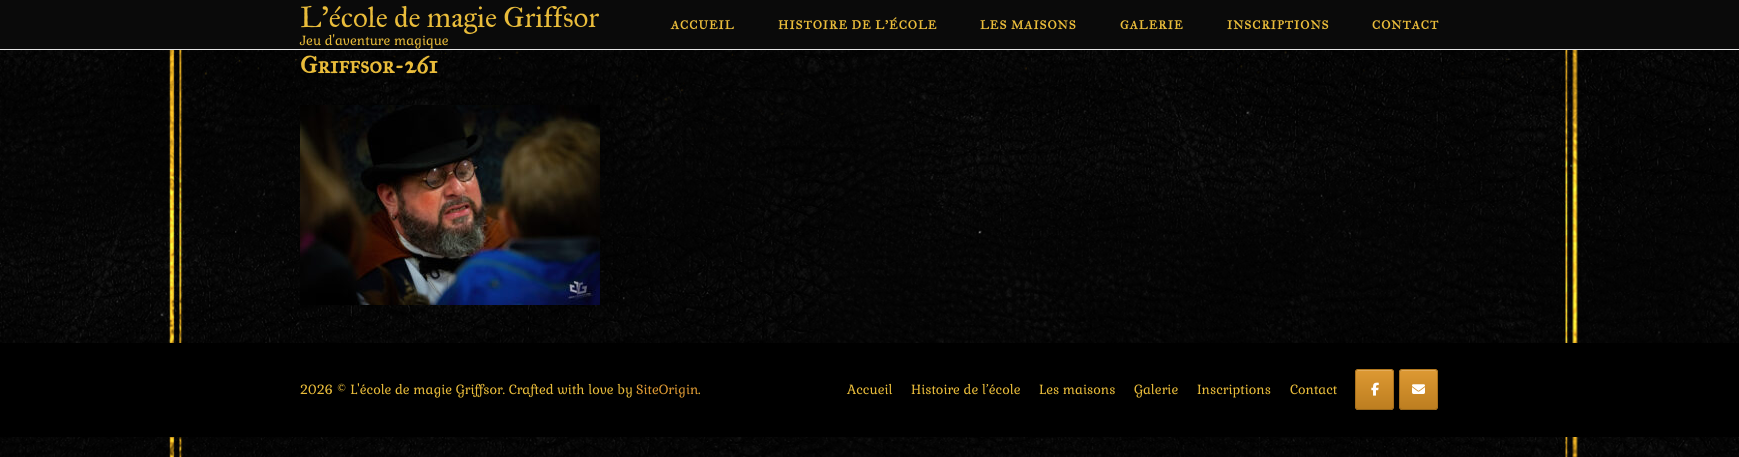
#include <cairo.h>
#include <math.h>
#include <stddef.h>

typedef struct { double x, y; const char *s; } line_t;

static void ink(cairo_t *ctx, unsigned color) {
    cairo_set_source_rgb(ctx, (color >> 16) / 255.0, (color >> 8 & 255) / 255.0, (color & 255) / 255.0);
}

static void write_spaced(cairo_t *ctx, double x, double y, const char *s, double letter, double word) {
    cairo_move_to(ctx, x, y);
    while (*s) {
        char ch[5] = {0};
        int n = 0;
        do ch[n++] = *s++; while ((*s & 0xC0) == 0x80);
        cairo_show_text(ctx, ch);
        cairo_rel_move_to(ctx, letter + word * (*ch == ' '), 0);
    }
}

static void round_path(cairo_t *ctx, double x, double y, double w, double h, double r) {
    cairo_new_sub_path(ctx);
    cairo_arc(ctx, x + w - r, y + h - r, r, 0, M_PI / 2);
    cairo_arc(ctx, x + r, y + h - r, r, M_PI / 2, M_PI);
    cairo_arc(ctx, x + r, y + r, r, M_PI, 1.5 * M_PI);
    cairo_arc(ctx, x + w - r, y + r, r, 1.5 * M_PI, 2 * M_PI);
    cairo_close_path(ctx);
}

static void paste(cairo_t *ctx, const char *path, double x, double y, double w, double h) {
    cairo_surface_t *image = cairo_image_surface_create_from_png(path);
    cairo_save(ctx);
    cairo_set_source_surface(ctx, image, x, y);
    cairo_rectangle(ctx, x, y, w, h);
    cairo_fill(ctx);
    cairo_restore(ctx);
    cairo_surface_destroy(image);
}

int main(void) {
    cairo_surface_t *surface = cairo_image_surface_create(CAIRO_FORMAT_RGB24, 1739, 457);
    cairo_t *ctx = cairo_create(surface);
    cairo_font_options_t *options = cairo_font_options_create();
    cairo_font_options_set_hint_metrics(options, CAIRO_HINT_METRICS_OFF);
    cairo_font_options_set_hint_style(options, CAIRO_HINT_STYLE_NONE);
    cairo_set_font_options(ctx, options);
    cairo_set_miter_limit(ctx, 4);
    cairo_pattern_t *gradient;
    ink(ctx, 0xFFFFFF);
    cairo_paint(ctx);
    paste(ctx, "media/1.png", 0, 50, 1739, 407);
    ink(ctx, 0x0A0A0A);
    cairo_rectangle(ctx, 0, 0, 1739, 49);
    cairo_fill(ctx);
    ink(ctx, 0xE6E6E6);
    cairo_rectangle(ctx, 0, 49, 1739, 1);
    cairo_fill(ctx);
    cairo_select_font_face(ctx, "IM FELL Great Primer", CAIRO_FONT_SLANT_NORMAL, CAIRO_FONT_WEIGHT_NORMAL);
    cairo_set_font_size(ctx, 29);
    ink(ctx, 0xE9BC3A);
    cairo_move_to(ctx, 300, 27);
    cairo_show_text(ctx, "L'école de magie Griffsor");
    cairo_select_font_face(ctx, "Gabriela", CAIRO_FONT_SLANT_NORMAL, CAIRO_FONT_WEIGHT_NORMAL);
    cairo_set_font_size(ctx, 13);
    cairo_move_to(ctx, 300, 45);
    cairo_show_text(ctx, "Jeu d'aventure magique");
    cairo_select_font_face(ctx, "IM FELL Great Primer SC", CAIRO_FONT_SLANT_NORMAL, CAIRO_FONT_WEIGHT_BOLD);
    cairo_set_font_size(ctx, 12);
    {
        static const line_t items[] = {
            {671, 29, "ACCUEIL"},
            {778, 29, "HISTOIRE DE L’ÉCOLE"},
            {980, 29, "LES MAISONS"},
            {1120, 29, "GALERIE"},
            {1227, 29, "INSCRIPTIONS"},
            {1372, 29, "CONTACT"},
        };
        for (size_t i = 0; i < sizeof items / sizeof *items; i++) {
            write_spaced(ctx, items[i].x, items[i].y, items[i].s, 1, 0);
        }
    }
    cairo_set_font_size(ctx, 24);
    cairo_move_to(ctx, 300, 73);
    cairo_show_text(ctx, "Griffsor-261");
    paste(ctx, "media/2.png", 300, 105, 300, 200);
    ink(ctx, 0x000000);
    cairo_rectangle(ctx, 0, 343, 1739, 94);
    cairo_fill(ctx);
    cairo_select_font_face(ctx, "Gabriela", CAIRO_FONT_SLANT_NORMAL, CAIRO_FONT_WEIGHT_NORMAL);
    cairo_set_font_size(ctx, 13);
    ink(ctx, 0xE9BC3A);
    cairo_move_to(ctx, 300, 394);
    cairo_show_text(ctx, "2026 © L'école de magie Griffsor. Crafted with love by");
    ink(ctx, 0xDD9933);
    cairo_move_to(ctx, 636, 394);
    cairo_show_text(ctx, "SiteOrigin");
    ink(ctx, 0xE9BC3A);
    {
        static const line_t items[] = {
            {698, 394, "."},
            {847, 394, "Accueil"},
            {911, 394, "Histoire de l’école"},
            {1039, 394, "Les maisons"},
            {1134, 394, "Galerie"},
            {1197, 394, "Inscriptions"},
            {1290, 394, "Contact"},
        };
        for (size_t i = 0; i < sizeof items / sizeof *items; i++) {
            cairo_move_to(ctx, items[i].x, items[i].y);
            cairo_show_text(ctx, items[i].s);
        }
    }
    cairo_save(ctx);
    round_path(ctx, 1355, 369, 39, 41, 3);
    cairo_clip(ctx);
    gradient = cairo_pattern_create_linear(1356, 370, 1356, 331);
    cairo_pattern_add_color_stop_rgba(gradient, 0, 0.741, 0.494, 0.125, 1);
    cairo_pattern_add_color_stop_rgba(gradient, 1, 0.867, 0.6, 0.2, 1);
    cairo_set_source(ctx, gradient);
    cairo_pattern_destroy(gradient);
    cairo_rectangle(ctx, 1355, 369, 39, 1);
    cairo_fill(ctx);
    gradient = cairo_pattern_create_linear(1356, 409, 1356, 370);
    cairo_pattern_add_color_stop_rgba(gradient, 0, 0.741, 0.494, 0.125, 1);
    cairo_pattern_add_color_stop_rgba(gradient, 1, 0.867, 0.6, 0.2, 1);
    cairo_set_source(ctx, gradient);
    cairo_pattern_destroy(gradient);
    cairo_rectangle(ctx, 1355, 370, 39, 39);
    cairo_fill(ctx);
    gradient = cairo_pattern_create_linear(1356, 448, 1356, 409);
    cairo_pattern_add_color_stop_rgba(gradient, 0, 0.741, 0.494, 0.125, 1);
    cairo_pattern_add_color_stop_rgba(gradient, 1, 0.867, 0.6, 0.2, 1);
    cairo_set_source(ctx, gradient);
    cairo_pattern_destroy(gradient);
    cairo_rectangle(ctx, 1355, 409, 39, 1);
    cairo_fill(ctx);
    cairo_restore(ctx);
    ink(ctx, 0xE4AD5C);
    cairo_new_path(ctx);
    cairo_move_to(ctx, 1358, 371);
    cairo_line_to(ctx, 1391, 371);
    cairo_curve_to(ctx, 1392, 371, 1393, 372, 1393, 373);
    cairo_curve_to(ctx, 1393, 368.5, 1389.5, 370, 1385.5, 370);
    cairo_line_to(ctx, 1363.5, 370);
    cairo_curve_to(ctx, 1359.5, 370, 1356, 368.5, 1356, 373);
    cairo_curve_to(ctx, 1356, 372, 1357, 371, 1358, 371);
    cairo_close_path(ctx);
    cairo_fill(ctx);
    cairo_new_path(ctx);
    cairo_move_to(ctx, 1356.5, 370.5);
    cairo_curve_to(ctx, 1357, 370, 1357.5, 369.5, 1358, 369.5);
    cairo_line_to(ctx, 1391, 369.5);
    cairo_curve_to(ctx, 1391.5, 369.5, 1392, 370, 1392.5, 370.5);
    ink(ctx, 0xB0761D);
    cairo_set_line_width(ctx, 1);
    cairo_stroke(ctx);
    cairo_new_path(ctx);
    cairo_move_to(ctx, 1392.5, 370.5);
    cairo_curve_to(ctx, 1393, 371, 1393.5, 371.5, 1393.5, 372);
    cairo_line_to(ctx, 1393.5, 407);
    cairo_curve_to(ctx, 1393.5, 407.5, 1393, 408, 1392.5, 408.5);
    ink(ctx, 0xA8701C);
    cairo_stroke(ctx);
    cairo_new_path(ctx);
    cairo_move_to(ctx, 1392.5, 408.5);
    cairo_curve_to(ctx, 1392, 409, 1391.5, 409.5, 1391, 409.5);
    cairo_line_to(ctx, 1358, 409.5);
    cairo_curve_to(ctx, 1357.5, 409.5, 1357, 409, 1356.5, 408.5);
    ink(ctx, 0x9A671A);
    cairo_stroke(ctx);
    cairo_new_path(ctx);
    cairo_move_to(ctx, 1356.5, 408.5);
    cairo_curve_to(ctx, 1356, 408, 1355.5, 407.5, 1355.5, 407);
    cairo_line_to(ctx, 1355.5, 372);
    cairo_curve_to(ctx, 1355.5, 371.5, 1356, 371, 1356.5, 370.5);
    ink(ctx, 0xA8701C);
    cairo_stroke(ctx);
    paste(ctx, "media/3.png", 1371, 382, 8, 14);
    cairo_save(ctx);
    round_path(ctx, 1399, 369, 39, 41, 3);
    cairo_clip(ctx);
    gradient = cairo_pattern_create_linear(1400, 370, 1400, 331);
    cairo_pattern_add_color_stop_rgba(gradient, 0, 0.741, 0.494, 0.125, 1);
    cairo_pattern_add_color_stop_rgba(gradient, 1, 0.867, 0.6, 0.2, 1);
    cairo_set_source(ctx, gradient);
    cairo_pattern_destroy(gradient);
    cairo_rectangle(ctx, 1399, 369, 39, 1);
    cairo_fill(ctx);
    gradient = cairo_pattern_create_linear(1400, 409, 1400, 370);
    cairo_pattern_add_color_stop_rgba(gradient, 0, 0.741, 0.494, 0.125, 1);
    cairo_pattern_add_color_stop_rgba(gradient, 1, 0.867, 0.6, 0.2, 1);
    cairo_set_source(ctx, gradient);
    cairo_pattern_destroy(gradient);
    cairo_rectangle(ctx, 1399, 370, 39, 39);
    cairo_fill(ctx);
    gradient = cairo_pattern_create_linear(1400, 448, 1400, 409);
    cairo_pattern_add_color_stop_rgba(gradient, 0, 0.741, 0.494, 0.125, 1);
    cairo_pattern_add_color_stop_rgba(gradient, 1, 0.867, 0.6, 0.2, 1);
    cairo_set_source(ctx, gradient);
    cairo_pattern_destroy(gradient);
    cairo_rectangle(ctx, 1399, 409, 39, 1);
    cairo_fill(ctx);
    cairo_restore(ctx);
    ink(ctx, 0xE4AD5C);
    cairo_new_path(ctx);
    cairo_move_to(ctx, 1402, 371);
    cairo_line_to(ctx, 1435, 371);
    cairo_curve_to(ctx, 1436, 371, 1437, 372, 1437, 373);
    cairo_curve_to(ctx, 1437, 368.5, 1433.5, 370, 1429.5, 370);
    cairo_line_to(ctx, 1407.5, 370);
    cairo_curve_to(ctx, 1403.5, 370, 1400, 368.5, 1400, 373);
    cairo_curve_to(ctx, 1400, 372, 1401, 371, 1402, 371);
    cairo_close_path(ctx);
    cairo_fill(ctx);
    cairo_new_path(ctx);
    cairo_move_to(ctx, 1400.5, 370.5);
    cairo_curve_to(ctx, 1401, 370, 1401.5, 369.5, 1402, 369.5);
    cairo_line_to(ctx, 1435, 369.5);
    cairo_curve_to(ctx, 1435.5, 369.5, 1436, 370, 1436.5, 370.5);
    ink(ctx, 0xB0761D);
    cairo_stroke(ctx);
    cairo_new_path(ctx);
    cairo_move_to(ctx, 1436.5, 370.5);
    cairo_curve_to(ctx, 1437, 371, 1437.5, 371.5, 1437.5, 372);
    cairo_line_to(ctx, 1437.5, 407);
    cairo_curve_to(ctx, 1437.5, 407.5, 1437, 408, 1436.5, 408.5);
    ink(ctx, 0xA8701C);
    cairo_stroke(ctx);
    cairo_new_path(ctx);
    cairo_move_to(ctx, 1436.5, 408.5);
    cairo_curve_to(ctx, 1436, 409, 1435.5, 409.5, 1435, 409.5);
    cairo_line_to(ctx, 1402, 409.5);
    cairo_curve_to(ctx, 1401.5, 409.5, 1401, 409, 1400.5, 408.5);
    ink(ctx, 0x9A671A);
    cairo_stroke(ctx);
    cairo_new_path(ctx);
    cairo_move_to(ctx, 1400.5, 408.5);
    cairo_curve_to(ctx, 1400, 408, 1399.5, 407.5, 1399.5, 407);
    cairo_line_to(ctx, 1399.5, 372);
    cairo_curve_to(ctx, 1399.5, 371.5, 1400, 371, 1400.5, 370.5);
    ink(ctx, 0xA8701C);
    cairo_stroke(ctx);
    paste(ctx, "media/4.png", 1412, 384, 13, 10);
    cairo_surface_write_to_png(surface, "image.png");
    cairo_font_options_destroy(options);
    cairo_destroy(ctx);
    cairo_surface_destroy(surface);
    return 0;
}
